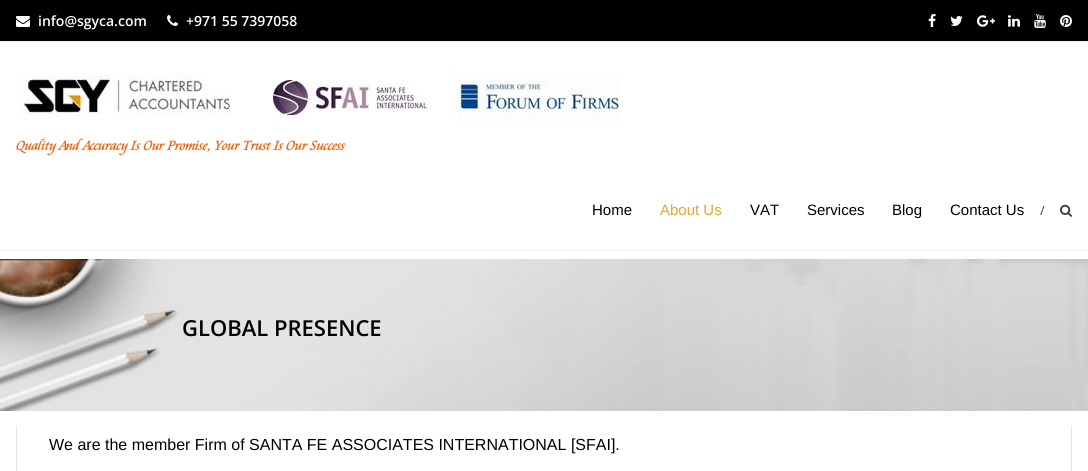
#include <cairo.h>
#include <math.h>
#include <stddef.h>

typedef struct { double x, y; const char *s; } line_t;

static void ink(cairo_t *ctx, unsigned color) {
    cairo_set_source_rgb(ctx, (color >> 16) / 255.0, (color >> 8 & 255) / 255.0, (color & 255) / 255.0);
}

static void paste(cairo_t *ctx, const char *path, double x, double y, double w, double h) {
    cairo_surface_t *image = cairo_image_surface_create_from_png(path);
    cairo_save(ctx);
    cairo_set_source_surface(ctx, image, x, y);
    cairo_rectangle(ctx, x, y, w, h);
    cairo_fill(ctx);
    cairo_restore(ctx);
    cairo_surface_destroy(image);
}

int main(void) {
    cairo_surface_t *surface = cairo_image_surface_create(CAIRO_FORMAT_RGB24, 1088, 471);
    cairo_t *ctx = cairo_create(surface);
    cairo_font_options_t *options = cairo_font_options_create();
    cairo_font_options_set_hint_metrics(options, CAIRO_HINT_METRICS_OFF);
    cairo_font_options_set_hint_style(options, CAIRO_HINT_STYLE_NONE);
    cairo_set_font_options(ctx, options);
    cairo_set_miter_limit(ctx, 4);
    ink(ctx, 0xFFFFFF);
    cairo_paint(ctx);
    ink(ctx, 0x010101);
    cairo_rectangle(ctx, 0, 0, 1088, 41);
    cairo_fill(ctx);
    ink(ctx, 0xF1F1F1);
    cairo_rectangle(ctx, 0, 41, 1088, 1);
    cairo_fill(ctx);
    paste(ctx, "media/1.png", 16, 16, 14, 11);
    cairo_select_font_face(ctx, "Open Sans SemiBold", CAIRO_FONT_SLANT_NORMAL, CAIRO_FONT_WEIGHT_NORMAL);
    cairo_set_font_size(ctx, 14);
    ink(ctx, 0xFFFFFF);
    cairo_move_to(ctx, 38, 26);
    cairo_show_text(ctx, "info@sgyca.com");
    paste(ctx, "media/2.png", 167, 15, 11, 11);
    cairo_move_to(ctx, 186, 26);
    cairo_show_text(ctx, "+971 55 7397058");
    paste(ctx, "media/3.png", 928, 14, 8, 13);
    paste(ctx, "media/4.png", 950, 16, 13, 10);
    paste(ctx, "media/5.png", 977, 15, 18, 12);
    paste(ctx, "media/6.png", 1008, 15, 12, 12);
    paste(ctx, "media/7.png", 1034, 14, 12, 14);
    paste(ctx, "media/8.png", 1060, 15, 12, 12);
    ink(ctx, 0xF1F1F1);
    cairo_rectangle(ctx, 0, 250, 1088, 1);
    cairo_fill(ctx);
    paste(ctx, "media/9.png", 22, 75, 208, 40);
    paste(ctx, "media/10.png", 273, 80, 154, 35);
    paste(ctx, "media/11.png", 458, 73, 162, 48);
    cairo_select_font_face(ctx, "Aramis", CAIRO_FONT_SLANT_ITALIC, CAIRO_FONT_WEIGHT_BOLD);
    ink(ctx, 0xF06412);
    cairo_move_to(ctx, 16, 150);
    cairo_show_text(ctx, "Quality And Accuracy Is Our Promise, Your Trust Is Our Success");
    cairo_select_font_face(ctx, "Liberation Sans", CAIRO_FONT_SLANT_NORMAL, CAIRO_FONT_WEIGHT_NORMAL);
    cairo_set_font_size(ctx, 15);
    ink(ctx, 0x000000);
    cairo_move_to(ctx, 592, 215);
    cairo_show_text(ctx, "Home");
    ink(ctx, 0xE9A42E);
    cairo_move_to(ctx, 660, 215);
    cairo_show_text(ctx, "About Us");
    ink(ctx, 0x000000);
    {
        static const line_t items[] = {
            {750, 215, "VAT"},
            {807, 215, "Services"},
            {892, 215, "Blog"},
            {950, 215, "Contact Us"},
        };
        for (size_t i = 0; i < sizeof items / sizeof *items; i++) {
            cairo_move_to(ctx, items[i].x, items[i].y);
            cairo_show_text(ctx, items[i].s);
        }
    }
    cairo_select_font_face(ctx, "Open Sans", CAIRO_FONT_SLANT_NORMAL, CAIRO_FONT_WEIGHT_NORMAL);
    cairo_set_font_size(ctx, 13);
    ink(ctx, 0x3D3D3D);
    cairo_move_to(ctx, 1040, 215);
    cairo_show_text(ctx, "/");
    paste(ctx, "media/12.png", 1060, 204, 12, 13);
    paste(ctx, "media/13.png", 0, 259, 1088, 152);
    cairo_select_font_face(ctx, "Open Sans SemiBold", CAIRO_FONT_SLANT_NORMAL, CAIRO_FONT_WEIGHT_NORMAL);
    cairo_set_font_size(ctx, 22);
    ink(ctx, 0x000000);
    cairo_move_to(ctx, 182, 336);
    cairo_show_text(ctx, "GLOBAL PRESENCE");
    ink(ctx, 0xE6E6E6);
    cairo_new_path(ctx);
    cairo_move_to(ctx, 1072, 426);
    cairo_line_to(ctx, 1072, 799);
    cairo_line_to(ctx, 1071, 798);
    cairo_line_to(ctx, 1071, 426);
    cairo_close_path(ctx);
    cairo_fill(ctx);
    cairo_new_path(ctx);
    cairo_move_to(ctx, 16, 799);
    cairo_line_to(ctx, 16, 426);
    cairo_line_to(ctx, 17, 426);
    cairo_line_to(ctx, 17, 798);
    cairo_close_path(ctx);
    cairo_fill(ctx);
    cairo_select_font_face(ctx, "Liberation Sans", CAIRO_FONT_SLANT_NORMAL, CAIRO_FONT_WEIGHT_NORMAL);
    cairo_set_font_size(ctx, 16);
    ink(ctx, 0x000000);
    cairo_move_to(ctx, 49, 450);
    cairo_show_text(ctx, "We are the member Firm of SANTA FE ASSOCIATES INTERNATIONAL [SFAI].");
    cairo_surface_write_to_png(surface, "image.png");
    cairo_font_options_destroy(options);
    cairo_destroy(ctx);
    cairo_surface_destroy(surface);
    return 0;
}
